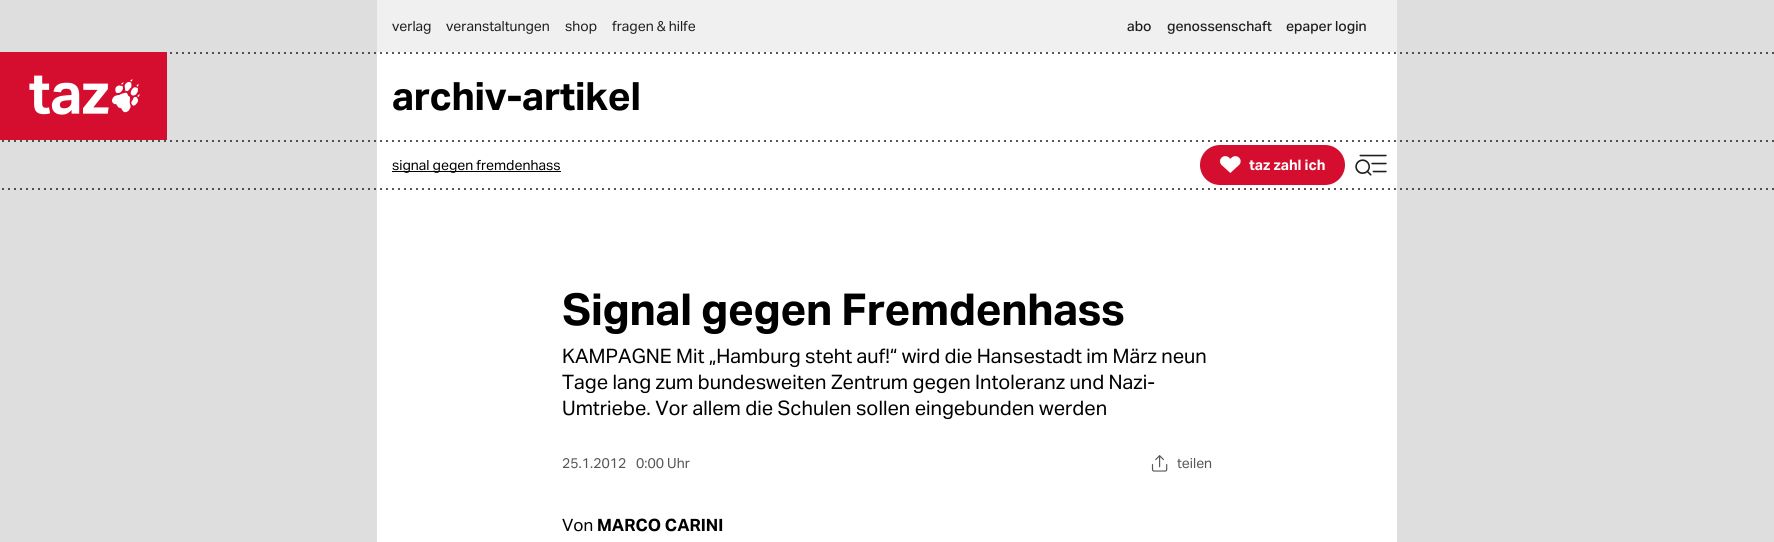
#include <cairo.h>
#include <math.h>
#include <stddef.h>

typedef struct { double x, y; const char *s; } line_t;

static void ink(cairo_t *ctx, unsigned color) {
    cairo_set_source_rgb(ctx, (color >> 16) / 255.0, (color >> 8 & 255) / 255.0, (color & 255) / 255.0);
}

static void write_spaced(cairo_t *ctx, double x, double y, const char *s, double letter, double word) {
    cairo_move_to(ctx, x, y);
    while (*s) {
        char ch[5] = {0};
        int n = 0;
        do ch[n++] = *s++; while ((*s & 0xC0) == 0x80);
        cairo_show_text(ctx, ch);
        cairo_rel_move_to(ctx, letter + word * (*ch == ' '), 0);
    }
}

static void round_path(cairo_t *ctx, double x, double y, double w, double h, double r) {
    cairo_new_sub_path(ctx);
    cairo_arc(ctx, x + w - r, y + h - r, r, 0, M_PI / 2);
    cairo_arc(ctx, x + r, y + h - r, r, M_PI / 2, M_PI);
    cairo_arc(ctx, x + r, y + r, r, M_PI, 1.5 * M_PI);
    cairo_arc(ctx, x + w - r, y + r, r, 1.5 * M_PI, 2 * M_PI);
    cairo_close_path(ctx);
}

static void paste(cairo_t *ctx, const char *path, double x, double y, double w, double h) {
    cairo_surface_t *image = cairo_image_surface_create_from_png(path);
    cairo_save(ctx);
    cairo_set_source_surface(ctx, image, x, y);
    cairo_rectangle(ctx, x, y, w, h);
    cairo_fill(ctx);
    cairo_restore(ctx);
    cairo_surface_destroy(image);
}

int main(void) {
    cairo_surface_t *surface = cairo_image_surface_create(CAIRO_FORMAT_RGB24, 1774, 542);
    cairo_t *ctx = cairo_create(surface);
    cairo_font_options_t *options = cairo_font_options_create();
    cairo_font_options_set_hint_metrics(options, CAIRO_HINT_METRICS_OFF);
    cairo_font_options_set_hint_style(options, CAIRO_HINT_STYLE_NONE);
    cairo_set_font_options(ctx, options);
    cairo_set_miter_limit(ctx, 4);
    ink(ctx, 0xDEDEDE);
    cairo_paint(ctx);
    ink(ctx, 0xFFFFFF);
    cairo_rectangle(ctx, 377, 52, 1020, 490);
    cairo_fill(ctx);
    ink(ctx, 0xF0F0F0);
    cairo_rectangle(ctx, 377, 0, 1020, 52);
    cairo_fill(ctx);
    cairo_select_font_face(ctx, "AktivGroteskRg", CAIRO_FONT_SLANT_NORMAL, CAIRO_FONT_WEIGHT_NORMAL);
    cairo_set_font_size(ctx, 14);
    ink(ctx, 0x1F1F1F);
    {
        static const line_t items[] = {
            {392, 31, "verlag"},
            {446, 31, "veranstaltungen"},
            {565, 31, "shop"},
            {612, 31, "fragen & hilfe"},
        };
        for (size_t i = 0; i < sizeof items / sizeof *items; i++) {
            cairo_move_to(ctx, items[i].x, items[i].y);
            cairo_show_text(ctx, items[i].s);
        }
    }
    cairo_select_font_face(ctx, "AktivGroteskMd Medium", CAIRO_FONT_SLANT_NORMAL, CAIRO_FONT_WEIGHT_NORMAL);
    {
        static const line_t items[] = {
            {1127, 31, "abo"},
            {1167, 31, "genossenschaft"},
            {1286, 31, "epaper login"},
        };
        for (size_t i = 0; i < sizeof items / sizeof *items; i++) {
            cairo_move_to(ctx, items[i].x, items[i].y);
            cairo_show_text(ctx, items[i].s);
        }
    }
    paste(ctx, "media/1.png", 0, 52, 167, 88);
    paste(ctx, "media/2.png", 170, 52, 1604, 2);
    cairo_select_font_face(ctx, "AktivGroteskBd", CAIRO_FONT_SLANT_NORMAL, CAIRO_FONT_WEIGHT_BOLD);
    cairo_set_font_size(ctx, 39);
    ink(ctx, 0x000000);
    write_spaced(ctx, 392, 110, "archiv-artikel", -0.25, 0);
    paste(ctx, "media/3.png", 2, 140, 1772, 2);
    cairo_rectangle(ctx, 392, 171, 169, 1);
    cairo_fill(ctx);
    cairo_select_font_face(ctx, "AktivGroteskRg", CAIRO_FONT_SLANT_NORMAL, CAIRO_FONT_WEIGHT_NORMAL);
    cairo_set_font_size(ctx, 14);
    cairo_move_to(ctx, 392, 170);
    cairo_show_text(ctx, "signal gegen fremdenhass");
    ink(ctx, 0xD50D2E);
    round_path(ctx, 1200, 145, 145, 40, 20);
    cairo_fill(ctx);
    paste(ctx, "media/4.png", 1220, 156, 21, 17);
    cairo_select_font_face(ctx, "AktivGroteskBd", CAIRO_FONT_SLANT_NORMAL, CAIRO_FONT_WEIGHT_BOLD);
    cairo_set_font_size(ctx, 14.5);
    ink(ctx, 0xFFFFFF);
    cairo_move_to(ctx, 1249, 170);
    cairo_show_text(ctx, "taz zahl ich");
    paste(ctx, "media/5.png", 1355, 154, 32, 22);
    paste(ctx, "media/3.png", 2, 188, 1772, 2);
    cairo_set_font_size(ctx, 44);
    ink(ctx, 0x000000);
    write_spaced(ctx, 562, 325, "Signal gegen Fremdenhass", -0.25, 0);
    cairo_select_font_face(ctx, "AktivGroteskRg", CAIRO_FONT_SLANT_NORMAL, CAIRO_FONT_WEIGHT_NORMAL);
    cairo_set_font_size(ctx, 20);
    {
        static const line_t items[] = {
            {562, 363, "KAMPAGNE Mit „Hamburg steht auf!“ wird die Hansestadt im März neun"},
            {562, 389, "Tage lang zum bundesweiten Zentrum gegen Intoleranz und Nazi-"},
            {562, 415, "Umtriebe. Vor allem die Schulen sollen eingebunden werden"},
        };
        for (size_t i = 0; i < sizeof items / sizeof *items; i++) {
            cairo_move_to(ctx, items[i].x, items[i].y);
            cairo_show_text(ctx, items[i].s);
        }
    }
    cairo_set_font_size(ctx, 14);
    ink(ctx, 0x565656);
    cairo_move_to(ctx, 562, 468);
    cairo_show_text(ctx, "25.1.2012");
    cairo_move_to(ctx, 636, 468);
    cairo_show_text(ctx, "0:00 Uhr");
    paste(ctx, "media/6.png", 1151, 455, 17, 17);
    cairo_move_to(ctx, 1177, 468);
    cairo_show_text(ctx, "teilen");
    cairo_set_font_size(ctx, 17);
    ink(ctx, 0x000000);
    cairo_move_to(ctx, 562, 531);
    cairo_show_text(ctx, "Von");
    cairo_select_font_face(ctx, "AktivGroteskBd", CAIRO_FONT_SLANT_NORMAL, CAIRO_FONT_WEIGHT_BOLD);
    cairo_move_to(ctx, 597, 531);
    cairo_show_text(ctx, "MARCO CARINI");
    cairo_surface_write_to_png(surface, "image.png");
    cairo_font_options_destroy(options);
    cairo_destroy(ctx);
    cairo_surface_destroy(surface);
    return 0;
}
